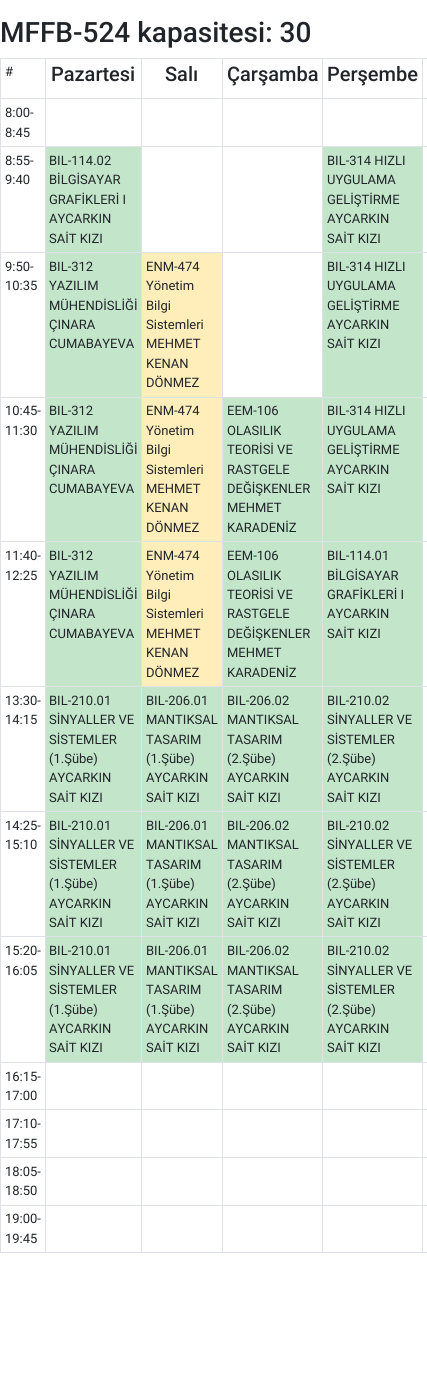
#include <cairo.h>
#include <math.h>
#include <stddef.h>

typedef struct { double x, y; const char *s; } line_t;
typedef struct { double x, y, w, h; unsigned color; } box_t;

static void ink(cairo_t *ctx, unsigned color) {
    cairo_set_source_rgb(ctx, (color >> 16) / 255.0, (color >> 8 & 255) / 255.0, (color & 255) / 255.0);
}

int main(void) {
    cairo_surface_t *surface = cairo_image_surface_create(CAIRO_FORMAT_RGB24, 427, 1393);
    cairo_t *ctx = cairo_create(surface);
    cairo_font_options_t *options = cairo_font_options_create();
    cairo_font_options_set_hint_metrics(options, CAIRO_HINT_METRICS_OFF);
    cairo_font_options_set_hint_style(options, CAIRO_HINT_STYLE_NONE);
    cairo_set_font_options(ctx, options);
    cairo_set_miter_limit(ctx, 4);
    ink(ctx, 0xFFFFFF);
    cairo_paint(ctx);
    cairo_select_font_face(ctx, "Roboto Medium", CAIRO_FONT_SLANT_NORMAL, CAIRO_FONT_WEIGHT_NORMAL);
    cairo_set_font_size(ctx, 28);
    ink(ctx, 0x212529);
    cairo_move_to(ctx, 0, 42);
    cairo_show_text(ctx, "MFFB-524 kapasitesi: 30");
    {
        static const box_t items[] = {
            {0, 58, 427, 1, 0xDEE2E6},
            {0, 1252, 427, 1, 0xDEE2E6},
            {0, 58, 1, 1195, 0xDEE2E6},
        };
        for (size_t i = 0; i < sizeof items / sizeof *items; i++) {
            ink(ctx, items[i].color);
            cairo_rectangle(ctx, items[i].x, items[i].y, items[i].w, items[i].h);
            cairo_fill(ctx);
        }
    }
    cairo_select_font_face(ctx, "Roboto", CAIRO_FONT_SLANT_NORMAL, CAIRO_FONT_WEIGHT_NORMAL);
    cairo_set_font_size(ctx, 13);
    ink(ctx, 0x212529);
    cairo_move_to(ctx, 5, 76);
    cairo_show_text(ctx, "#");
    {
        static const box_t items[] = {
            {422, 98, 5, 1, 0xDEE2E6},
            {422, 146, 5, 1, 0xDEE2E6},
            {422, 252, 5, 1, 0xDEE2E6},
            {422, 397, 5, 1, 0xDEE2E6},
            {422, 541, 5, 1, 0xDEE2E6},
            {422, 686, 5, 1, 0xDEE2E6},
            {422, 811, 5, 1, 0xDEE2E6},
            {422, 936, 5, 1, 0xDEE2E6},
            {422, 1062, 5, 1, 0xDEE2E6},
            {422, 1109, 5, 1, 0xDEE2E6},
            {422, 1157, 5, 1, 0xDEE2E6},
            {422, 1205, 5, 1, 0xDEE2E6},
            {422, 1205, 1, 48, 0xDEE2E6},
            {322, 1205, 101, 1, 0xDEE2E6},
            {422, 1157, 1, 49, 0xDEE2E6},
            {322, 1157, 101, 1, 0xDEE2E6},
            {422, 1109, 1, 49, 0xDEE2E6},
            {322, 1109, 101, 1, 0xDEE2E6},
            {422, 1062, 1, 48, 0xDEE2E6},
            {322, 1062, 101, 1, 0xDEE2E6},
            {422, 936, 1, 127, 0xDEE2E6},
            {322, 936, 101, 1, 0xDEE2E6},
            {422, 811, 1, 126, 0xDEE2E6},
            {322, 811, 101, 1, 0xDEE2E6},
            {422, 686, 1, 126, 0xDEE2E6},
            {322, 686, 101, 1, 0xDEE2E6},
            {422, 541, 1, 146, 0xDEE2E6},
            {322, 541, 101, 1, 0xDEE2E6},
            {422, 397, 1, 145, 0xDEE2E6},
            {322, 397, 101, 1, 0xDEE2E6},
            {422, 252, 1, 146, 0xDEE2E6},
            {322, 252, 101, 1, 0xDEE2E6},
            {422, 146, 1, 107, 0xDEE2E6},
            {322, 146, 101, 1, 0xDEE2E6},
            {422, 98, 1, 49, 0xDEE2E6},
            {322, 98, 101, 1, 0xDEE2E6},
            {322, 1205, 1, 48, 0xDEE2E6},
            {222, 1205, 101, 1, 0xDEE2E6},
            {322, 1157, 1, 49, 0xDEE2E6},
            {222, 1157, 101, 1, 0xDEE2E6},
            {322, 1109, 1, 49, 0xDEE2E6},
            {222, 1109, 101, 1, 0xDEE2E6},
            {322, 1062, 1, 48, 0xDEE2E6},
            {222, 1062, 101, 1, 0xDEE2E6},
            {322, 936, 1, 127, 0xDEE2E6},
            {222, 936, 101, 1, 0xDEE2E6},
            {322, 811, 1, 126, 0xDEE2E6},
            {222, 811, 101, 1, 0xDEE2E6},
            {322, 686, 1, 126, 0xDEE2E6},
            {222, 686, 101, 1, 0xDEE2E6},
            {322, 541, 1, 146, 0xDEE2E6},
            {222, 541, 101, 1, 0xDEE2E6},
            {322, 397, 1, 145, 0xDEE2E6},
            {222, 397, 101, 1, 0xDEE2E6},
            {322, 252, 1, 146, 0xDEE2E6},
            {222, 252, 101, 1, 0xDEE2E6},
            {322, 146, 1, 107, 0xDEE2E6},
            {222, 146, 101, 1, 0xDEE2E6},
            {322, 98, 1, 49, 0xDEE2E6},
            {222, 98, 101, 1, 0xDEE2E6},
            {222, 1205, 1, 48, 0xDEE2E6},
            {141, 1205, 82, 1, 0xDEE2E6},
            {222, 1157, 1, 49, 0xDEE2E6},
            {141, 1157, 82, 1, 0xDEE2E6},
            {222, 1109, 1, 49, 0xDEE2E6},
            {141, 1109, 82, 1, 0xDEE2E6},
            {222, 1062, 1, 48, 0xDEE2E6},
            {141, 1062, 82, 1, 0xDEE2E6},
            {222, 936, 1, 127, 0xDEE2E6},
            {141, 936, 82, 1, 0xDEE2E6},
            {222, 811, 1, 126, 0xDEE2E6},
            {141, 811, 82, 1, 0xDEE2E6},
            {222, 686, 1, 126, 0xDEE2E6},
            {141, 686, 82, 1, 0xDEE2E6},
            {222, 541, 1, 146, 0xDEE2E6},
            {141, 541, 82, 1, 0xDEE2E6},
            {222, 397, 1, 145, 0xDEE2E6},
            {141, 397, 82, 1, 0xDEE2E6},
            {222, 252, 1, 146, 0xDEE2E6},
            {141, 252, 82, 1, 0xDEE2E6},
            {222, 146, 1, 107, 0xDEE2E6},
            {141, 146, 82, 1, 0xDEE2E6},
            {222, 98, 1, 49, 0xDEE2E6},
            {141, 98, 82, 1, 0xDEE2E6},
            {141, 1205, 1, 48, 0xDEE2E6},
            {45, 1205, 97, 1, 0xDEE2E6},
            {141, 1157, 1, 49, 0xDEE2E6},
            {45, 1157, 97, 1, 0xDEE2E6},
            {141, 1109, 1, 49, 0xDEE2E6},
            {45, 1109, 97, 1, 0xDEE2E6},
            {141, 1062, 1, 48, 0xDEE2E6},
            {45, 1062, 97, 1, 0xDEE2E6},
            {141, 936, 1, 127, 0xDEE2E6},
            {45, 936, 97, 1, 0xDEE2E6},
            {141, 811, 1, 126, 0xDEE2E6},
            {45, 811, 97, 1, 0xDEE2E6},
            {141, 686, 1, 126, 0xDEE2E6},
            {45, 686, 97, 1, 0xDEE2E6},
            {141, 541, 1, 146, 0xDEE2E6},
            {45, 541, 97, 1, 0xDEE2E6},
            {141, 397, 1, 145, 0xDEE2E6},
            {45, 397, 97, 1, 0xDEE2E6},
            {141, 252, 1, 146, 0xDEE2E6},
            {45, 252, 97, 1, 0xDEE2E6},
            {141, 146, 1, 107, 0xDEE2E6},
            {45, 146, 97, 1, 0xDEE2E6},
            {141, 98, 1, 49, 0xDEE2E6},
            {45, 98, 97, 1, 0xDEE2E6},
            {45, 1205, 1, 48, 0xDEE2E6},
            {0, 1205, 46, 1, 0xDEE2E6},
            {45, 1157, 1, 49, 0xDEE2E6},
            {0, 1157, 46, 1, 0xDEE2E6},
            {45, 1109, 1, 49, 0xDEE2E6},
            {0, 1109, 46, 1, 0xDEE2E6},
            {45, 1062, 1, 48, 0xDEE2E6},
            {0, 1062, 46, 1, 0xDEE2E6},
            {45, 936, 1, 127, 0xDEE2E6},
            {0, 936, 46, 1, 0xDEE2E6},
            {45, 811, 1, 126, 0xDEE2E6},
            {0, 811, 46, 1, 0xDEE2E6},
            {45, 686, 1, 126, 0xDEE2E6},
            {0, 686, 46, 1, 0xDEE2E6},
            {45, 541, 1, 146, 0xDEE2E6},
            {0, 541, 46, 1, 0xDEE2E6},
            {45, 397, 1, 145, 0xDEE2E6},
            {0, 397, 46, 1, 0xDEE2E6},
            {45, 252, 1, 146, 0xDEE2E6},
            {0, 252, 46, 1, 0xDEE2E6},
            {45, 146, 1, 107, 0xDEE2E6},
            {0, 146, 46, 1, 0xDEE2E6},
            {45, 98, 1, 49, 0xDEE2E6},
            {0, 98, 46, 1, 0xDEE2E6},
            {45, 58, 1, 41, 0xDEE2E6},
        };
        for (size_t i = 0; i < sizeof items / sizeof *items; i++) {
            ink(ctx, items[i].color);
            cairo_rectangle(ctx, items[i].x, items[i].y, items[i].w, items[i].h);
            cairo_fill(ctx);
        }
    }
    cairo_select_font_face(ctx, "Roboto Medium", CAIRO_FONT_SLANT_NORMAL, CAIRO_FONT_WEIGHT_NORMAL);
    cairo_set_font_size(ctx, 20);
    ink(ctx, 0x212529);
    cairo_move_to(ctx, 51, 81);
    cairo_show_text(ctx, "Pazartesi");
    ink(ctx, 0xDEE2E6);
    cairo_rectangle(ctx, 141, 58, 1, 41);
    cairo_fill(ctx);
    ink(ctx, 0x212529);
    cairo_move_to(ctx, 165, 81);
    cairo_show_text(ctx, "Salı");
    ink(ctx, 0xDEE2E6);
    cairo_rectangle(ctx, 222, 58, 1, 41);
    cairo_fill(ctx);
    ink(ctx, 0x212529);
    cairo_move_to(ctx, 227, 81);
    cairo_show_text(ctx, "Çarşamba");
    ink(ctx, 0xDEE2E6);
    cairo_rectangle(ctx, 322, 58, 1, 41);
    cairo_fill(ctx);
    ink(ctx, 0x212529);
    cairo_move_to(ctx, 327, 81);
    cairo_show_text(ctx, "Perşembe");
    ink(ctx, 0xDEE2E6);
    cairo_rectangle(ctx, 422, 58, 1, 41);
    cairo_fill(ctx);
    cairo_select_font_face(ctx, "Roboto", CAIRO_FONT_SLANT_NORMAL, CAIRO_FONT_WEIGHT_NORMAL);
    cairo_set_font_size(ctx, 13);
    ink(ctx, 0x212529);
    {
        static const line_t items[] = {
            {5, 117, "8:00-"},
            {5, 137, "8:45"},
            {5, 165, "8:55-"},
            {5, 184, "9:40"},
        };
        for (size_t i = 0; i < sizeof items / sizeof *items; i++) {
            cairo_move_to(ctx, items[i].x, items[i].y);
            cairo_show_text(ctx, items[i].s);
        }
    }
    ink(ctx, 0xC3E6CB);
    cairo_rectangle(ctx, 46, 147, 95, 105);
    cairo_fill(ctx);
    ink(ctx, 0x212529);
    {
        static const line_t items[] = {
            {49, 165, "BIL-114.02"},
            {49, 184, "BİLGİSAYAR"},
            {49, 204, "GRAFİKLERİ I"},
            {49, 223, "AYCARKIN"},
            {49, 243, "SAİT KIZI"},
        };
        for (size_t i = 0; i < sizeof items / sizeof *items; i++) {
            cairo_move_to(ctx, items[i].x, items[i].y);
            cairo_show_text(ctx, items[i].s);
        }
    }
    ink(ctx, 0xC3E6CB);
    cairo_rectangle(ctx, 323, 147, 99, 105);
    cairo_fill(ctx);
    ink(ctx, 0x212529);
    {
        static const line_t items[] = {
            {327, 165, "BIL-314 HIZLI"},
            {327, 184, "UYGULAMA"},
            {327, 204, "GELİŞTİRME"},
            {327, 223, "AYCARKIN"},
            {327, 243, "SAİT KIZI"},
            {5, 271, "9:50-"},
            {5, 290, "10:35"},
        };
        for (size_t i = 0; i < sizeof items / sizeof *items; i++) {
            cairo_move_to(ctx, items[i].x, items[i].y);
            cairo_show_text(ctx, items[i].s);
        }
    }
    ink(ctx, 0xC3E6CB);
    cairo_rectangle(ctx, 46, 253, 95, 144);
    cairo_fill(ctx);
    ink(ctx, 0x212529);
    {
        static const line_t items[] = {
            {49, 271, "BIL-312"},
            {49, 290, "YAZILIM"},
            {49, 310, "MÜHENDİSLİĞİ"},
            {49, 329, "ÇINARA"},
            {49, 348, "CUMABAYEVA"},
        };
        for (size_t i = 0; i < sizeof items / sizeof *items; i++) {
            cairo_move_to(ctx, items[i].x, items[i].y);
            cairo_show_text(ctx, items[i].s);
        }
    }
    ink(ctx, 0xFFEEBA);
    cairo_rectangle(ctx, 142, 253, 80, 144);
    cairo_fill(ctx);
    ink(ctx, 0x212529);
    {
        static const line_t items[] = {
            {146, 271, "ENM-474"},
            {146, 290, "Yönetim"},
            {146, 310, "Bilgi"},
            {146, 329, "Sistemleri"},
            {146, 348, "MEHMET"},
            {146, 368, "KENAN"},
            {146, 387, "DÖNMEZ"},
        };
        for (size_t i = 0; i < sizeof items / sizeof *items; i++) {
            cairo_move_to(ctx, items[i].x, items[i].y);
            cairo_show_text(ctx, items[i].s);
        }
    }
    ink(ctx, 0xC3E6CB);
    cairo_rectangle(ctx, 323, 253, 99, 144);
    cairo_fill(ctx);
    ink(ctx, 0x212529);
    {
        static const line_t items[] = {
            {327, 271, "BIL-314 HIZLI"},
            {327, 290, "UYGULAMA"},
            {327, 310, "GELİŞTİRME"},
            {327, 329, "AYCARKIN"},
            {327, 348, "SAİT KIZI"},
            {5, 415, "10:45-"},
            {5, 435, "11:30"},
        };
        for (size_t i = 0; i < sizeof items / sizeof *items; i++) {
            cairo_move_to(ctx, items[i].x, items[i].y);
            cairo_show_text(ctx, items[i].s);
        }
    }
    ink(ctx, 0xC3E6CB);
    cairo_rectangle(ctx, 46, 398, 95, 143);
    cairo_fill(ctx);
    ink(ctx, 0x212529);
    {
        static const line_t items[] = {
            {49, 415, "BIL-312"},
            {49, 435, "YAZILIM"},
            {49, 454, "MÜHENDİSLİĞİ"},
            {49, 474, "ÇINARA"},
            {49, 493, "CUMABAYEVA"},
        };
        for (size_t i = 0; i < sizeof items / sizeof *items; i++) {
            cairo_move_to(ctx, items[i].x, items[i].y);
            cairo_show_text(ctx, items[i].s);
        }
    }
    ink(ctx, 0xFFEEBA);
    cairo_rectangle(ctx, 142, 398, 80, 143);
    cairo_fill(ctx);
    ink(ctx, 0x212529);
    {
        static const line_t items[] = {
            {146, 415, "ENM-474"},
            {146, 435, "Yönetim"},
            {146, 454, "Bilgi"},
            {146, 474, "Sistemleri"},
            {146, 493, "MEHMET"},
            {146, 512, "KENAN"},
            {146, 532, "DÖNMEZ"},
        };
        for (size_t i = 0; i < sizeof items / sizeof *items; i++) {
            cairo_move_to(ctx, items[i].x, items[i].y);
            cairo_show_text(ctx, items[i].s);
        }
    }
    ink(ctx, 0xC3E6CB);
    cairo_rectangle(ctx, 223, 398, 99, 143);
    cairo_fill(ctx);
    ink(ctx, 0x212529);
    {
        static const line_t items[] = {
            {227, 415, "EEM-106"},
            {227, 435, "OLASILIK"},
            {227, 454, "TEORİSİ VE"},
            {227, 474, "RASTGELE"},
            {227, 493, "DEĞİŞKENLER"},
            {227, 512, "MEHMET"},
            {227, 532, "KARADENİZ"},
        };
        for (size_t i = 0; i < sizeof items / sizeof *items; i++) {
            cairo_move_to(ctx, items[i].x, items[i].y);
            cairo_show_text(ctx, items[i].s);
        }
    }
    ink(ctx, 0xC3E6CB);
    cairo_rectangle(ctx, 323, 398, 99, 143);
    cairo_fill(ctx);
    ink(ctx, 0x212529);
    {
        static const line_t items[] = {
            {327, 415, "BIL-314 HIZLI"},
            {327, 435, "UYGULAMA"},
            {327, 454, "GELİŞTİRME"},
            {327, 474, "AYCARKIN"},
            {327, 493, "SAİT KIZI"},
            {5, 560, "11:40-"},
            {5, 580, "12:25"},
        };
        for (size_t i = 0; i < sizeof items / sizeof *items; i++) {
            cairo_move_to(ctx, items[i].x, items[i].y);
            cairo_show_text(ctx, items[i].s);
        }
    }
    ink(ctx, 0xC3E6CB);
    cairo_rectangle(ctx, 46, 542, 95, 144);
    cairo_fill(ctx);
    ink(ctx, 0x212529);
    {
        static const line_t items[] = {
            {49, 560, "BIL-312"},
            {49, 580, "YAZILIM"},
            {49, 599, "MÜHENDİSLİĞİ"},
            {49, 618, "ÇINARA"},
            {49, 638, "CUMABAYEVA"},
        };
        for (size_t i = 0; i < sizeof items / sizeof *items; i++) {
            cairo_move_to(ctx, items[i].x, items[i].y);
            cairo_show_text(ctx, items[i].s);
        }
    }
    ink(ctx, 0xFFEEBA);
    cairo_rectangle(ctx, 142, 542, 80, 144);
    cairo_fill(ctx);
    ink(ctx, 0x212529);
    {
        static const line_t items[] = {
            {146, 560, "ENM-474"},
            {146, 580, "Yönetim"},
            {146, 599, "Bilgi"},
            {146, 618, "Sistemleri"},
            {146, 638, "MEHMET"},
            {146, 657, "KENAN"},
            {146, 677, "DÖNMEZ"},
        };
        for (size_t i = 0; i < sizeof items / sizeof *items; i++) {
            cairo_move_to(ctx, items[i].x, items[i].y);
            cairo_show_text(ctx, items[i].s);
        }
    }
    ink(ctx, 0xC3E6CB);
    cairo_rectangle(ctx, 223, 542, 99, 144);
    cairo_fill(ctx);
    ink(ctx, 0x212529);
    {
        static const line_t items[] = {
            {227, 560, "EEM-106"},
            {227, 580, "OLASILIK"},
            {227, 599, "TEORİSİ VE"},
            {227, 618, "RASTGELE"},
            {227, 638, "DEĞİŞKENLER"},
            {227, 657, "MEHMET"},
            {227, 677, "KARADENİZ"},
        };
        for (size_t i = 0; i < sizeof items / sizeof *items; i++) {
            cairo_move_to(ctx, items[i].x, items[i].y);
            cairo_show_text(ctx, items[i].s);
        }
    }
    ink(ctx, 0xC3E6CB);
    cairo_rectangle(ctx, 323, 542, 99, 144);
    cairo_fill(ctx);
    ink(ctx, 0x212529);
    {
        static const line_t items[] = {
            {327, 560, "BIL-114.01"},
            {327, 580, "BİLGİSAYAR"},
            {327, 599, "GRAFİKLERİ I"},
            {327, 618, "AYCARKIN"},
            {327, 638, "SAİT KIZI"},
            {5, 705, "13:30-"},
            {5, 724, "14:15"},
        };
        for (size_t i = 0; i < sizeof items / sizeof *items; i++) {
            cairo_move_to(ctx, items[i].x, items[i].y);
            cairo_show_text(ctx, items[i].s);
        }
    }
    ink(ctx, 0xC3E6CB);
    cairo_rectangle(ctx, 46, 687, 95, 124);
    cairo_fill(ctx);
    ink(ctx, 0x212529);
    {
        static const line_t items[] = {
            {49, 705, "BIL-210.01"},
            {49, 724, "SİNYALLER VE"},
            {49, 744, "SİSTEMLER"},
            {49, 763, "(1.Şübe)"},
            {49, 782, "AYCARKIN"},
            {49, 802, "SAİT KIZI"},
        };
        for (size_t i = 0; i < sizeof items / sizeof *items; i++) {
            cairo_move_to(ctx, items[i].x, items[i].y);
            cairo_show_text(ctx, items[i].s);
        }
    }
    ink(ctx, 0xC3E6CB);
    cairo_rectangle(ctx, 142, 687, 80, 124);
    cairo_fill(ctx);
    ink(ctx, 0x212529);
    {
        static const line_t items[] = {
            {146, 705, "BIL-206.01"},
            {146, 724, "MANTIKSAL"},
            {146, 744, "TASARIM"},
            {146, 763, "(1.Şübe)"},
            {146, 782, "AYCARKIN"},
            {146, 802, "SAİT KIZI"},
        };
        for (size_t i = 0; i < sizeof items / sizeof *items; i++) {
            cairo_move_to(ctx, items[i].x, items[i].y);
            cairo_show_text(ctx, items[i].s);
        }
    }
    ink(ctx, 0xC3E6CB);
    cairo_rectangle(ctx, 223, 687, 99, 124);
    cairo_fill(ctx);
    ink(ctx, 0x212529);
    {
        static const line_t items[] = {
            {227, 705, "BIL-206.02"},
            {227, 724, "MANTIKSAL"},
            {227, 744, "TASARIM"},
            {227, 763, "(2.Şübe)"},
            {227, 782, "AYCARKIN"},
            {227, 802, "SAİT KIZI"},
        };
        for (size_t i = 0; i < sizeof items / sizeof *items; i++) {
            cairo_move_to(ctx, items[i].x, items[i].y);
            cairo_show_text(ctx, items[i].s);
        }
    }
    ink(ctx, 0xC3E6CB);
    cairo_rectangle(ctx, 323, 687, 99, 124);
    cairo_fill(ctx);
    ink(ctx, 0x212529);
    {
        static const line_t items[] = {
            {327, 705, "BIL-210.02"},
            {327, 724, "SİNYALLER VE"},
            {327, 744, "SİSTEMLER"},
            {327, 763, "(2.Şübe)"},
            {327, 782, "AYCARKIN"},
            {327, 802, "SAİT KIZI"},
            {5, 830, "14:25-"},
            {5, 849, "15:10"},
        };
        for (size_t i = 0; i < sizeof items / sizeof *items; i++) {
            cairo_move_to(ctx, items[i].x, items[i].y);
            cairo_show_text(ctx, items[i].s);
        }
    }
    ink(ctx, 0xC3E6CB);
    cairo_rectangle(ctx, 46, 812, 95, 124);
    cairo_fill(ctx);
    ink(ctx, 0x212529);
    {
        static const line_t items[] = {
            {49, 830, "BIL-210.01"},
            {49, 849, "SİNYALLER VE"},
            {49, 869, "SİSTEMLER"},
            {49, 888, "(1.Şübe)"},
            {49, 908, "AYCARKIN"},
            {49, 927, "SAİT KIZI"},
        };
        for (size_t i = 0; i < sizeof items / sizeof *items; i++) {
            cairo_move_to(ctx, items[i].x, items[i].y);
            cairo_show_text(ctx, items[i].s);
        }
    }
    ink(ctx, 0xC3E6CB);
    cairo_rectangle(ctx, 142, 812, 80, 124);
    cairo_fill(ctx);
    ink(ctx, 0x212529);
    {
        static const line_t items[] = {
            {146, 830, "BIL-206.01"},
            {146, 849, "MANTIKSAL"},
            {146, 869, "TASARIM"},
            {146, 888, "(1.Şübe)"},
            {146, 908, "AYCARKIN"},
            {146, 927, "SAİT KIZI"},
        };
        for (size_t i = 0; i < sizeof items / sizeof *items; i++) {
            cairo_move_to(ctx, items[i].x, items[i].y);
            cairo_show_text(ctx, items[i].s);
        }
    }
    ink(ctx, 0xC3E6CB);
    cairo_rectangle(ctx, 223, 812, 99, 124);
    cairo_fill(ctx);
    ink(ctx, 0x212529);
    {
        static const line_t items[] = {
            {227, 830, "BIL-206.02"},
            {227, 849, "MANTIKSAL"},
            {227, 869, "TASARIM"},
            {227, 888, "(2.Şübe)"},
            {227, 908, "AYCARKIN"},
            {227, 927, "SAİT KIZI"},
        };
        for (size_t i = 0; i < sizeof items / sizeof *items; i++) {
            cairo_move_to(ctx, items[i].x, items[i].y);
            cairo_show_text(ctx, items[i].s);
        }
    }
    ink(ctx, 0xC3E6CB);
    cairo_rectangle(ctx, 323, 812, 99, 124);
    cairo_fill(ctx);
    ink(ctx, 0x212529);
    {
        static const line_t items[] = {
            {327, 830, "BIL-210.02"},
            {327, 849, "SİNYALLER VE"},
            {327, 869, "SİSTEMLER"},
            {327, 888, "(2.Şübe)"},
            {327, 908, "AYCARKIN"},
            {327, 927, "SAİT KIZI"},
            {5, 955, "15:20-"},
            {5, 975, "16:05"},
        };
        for (size_t i = 0; i < sizeof items / sizeof *items; i++) {
            cairo_move_to(ctx, items[i].x, items[i].y);
            cairo_show_text(ctx, items[i].s);
        }
    }
    ink(ctx, 0xC3E6CB);
    cairo_rectangle(ctx, 46, 937, 95, 125);
    cairo_fill(ctx);
    ink(ctx, 0x212529);
    {
        static const line_t items[] = {
            {49, 955, "BIL-210.01"},
            {49, 975, "SİNYALLER VE"},
            {49, 994, "SİSTEMLER"},
            {49, 1014, "(1.Şübe)"},
            {49, 1033, "AYCARKIN"},
            {49, 1052, "SAİT KIZI"},
        };
        for (size_t i = 0; i < sizeof items / sizeof *items; i++) {
            cairo_move_to(ctx, items[i].x, items[i].y);
            cairo_show_text(ctx, items[i].s);
        }
    }
    ink(ctx, 0xC3E6CB);
    cairo_rectangle(ctx, 142, 937, 80, 125);
    cairo_fill(ctx);
    ink(ctx, 0x212529);
    {
        static const line_t items[] = {
            {146, 955, "BIL-206.01"},
            {146, 975, "MANTIKSAL"},
            {146, 994, "TASARIM"},
            {146, 1014, "(1.Şübe)"},
            {146, 1033, "AYCARKIN"},
            {146, 1052, "SAİT KIZI"},
        };
        for (size_t i = 0; i < sizeof items / sizeof *items; i++) {
            cairo_move_to(ctx, items[i].x, items[i].y);
            cairo_show_text(ctx, items[i].s);
        }
    }
    ink(ctx, 0xC3E6CB);
    cairo_rectangle(ctx, 223, 937, 99, 125);
    cairo_fill(ctx);
    ink(ctx, 0x212529);
    {
        static const line_t items[] = {
            {227, 955, "BIL-206.02"},
            {227, 975, "MANTIKSAL"},
            {227, 994, "TASARIM"},
            {227, 1014, "(2.Şübe)"},
            {227, 1033, "AYCARKIN"},
            {227, 1052, "SAİT KIZI"},
        };
        for (size_t i = 0; i < sizeof items / sizeof *items; i++) {
            cairo_move_to(ctx, items[i].x, items[i].y);
            cairo_show_text(ctx, items[i].s);
        }
    }
    ink(ctx, 0xC3E6CB);
    cairo_rectangle(ctx, 323, 937, 99, 125);
    cairo_fill(ctx);
    ink(ctx, 0x212529);
    {
        static const line_t items[] = {
            {327, 955, "BIL-210.02"},
            {327, 975, "SİNYALLER VE"},
            {327, 994, "SİSTEMLER"},
            {327, 1014, "(2.Şübe)"},
            {327, 1033, "AYCARKIN"},
            {327, 1052, "SAİT KIZI"},
            {5, 1081, "16:15-"},
            {5, 1100, "17:00"},
            {5, 1128, "17:10-"},
            {5, 1148, "17:55"},
            {5, 1176, "18:05-"},
            {5, 1195, "18:50"},
            {5, 1223, "19:00-"},
            {5, 1243, "19:45"},
        };
        for (size_t i = 0; i < sizeof items / sizeof *items; i++) {
            cairo_move_to(ctx, items[i].x, items[i].y);
            cairo_show_text(ctx, items[i].s);
        }
    }
    cairo_surface_write_to_png(surface, "image.png");
    cairo_font_options_destroy(options);
    cairo_destroy(ctx);
    cairo_surface_destroy(surface);
    return 0;
}
